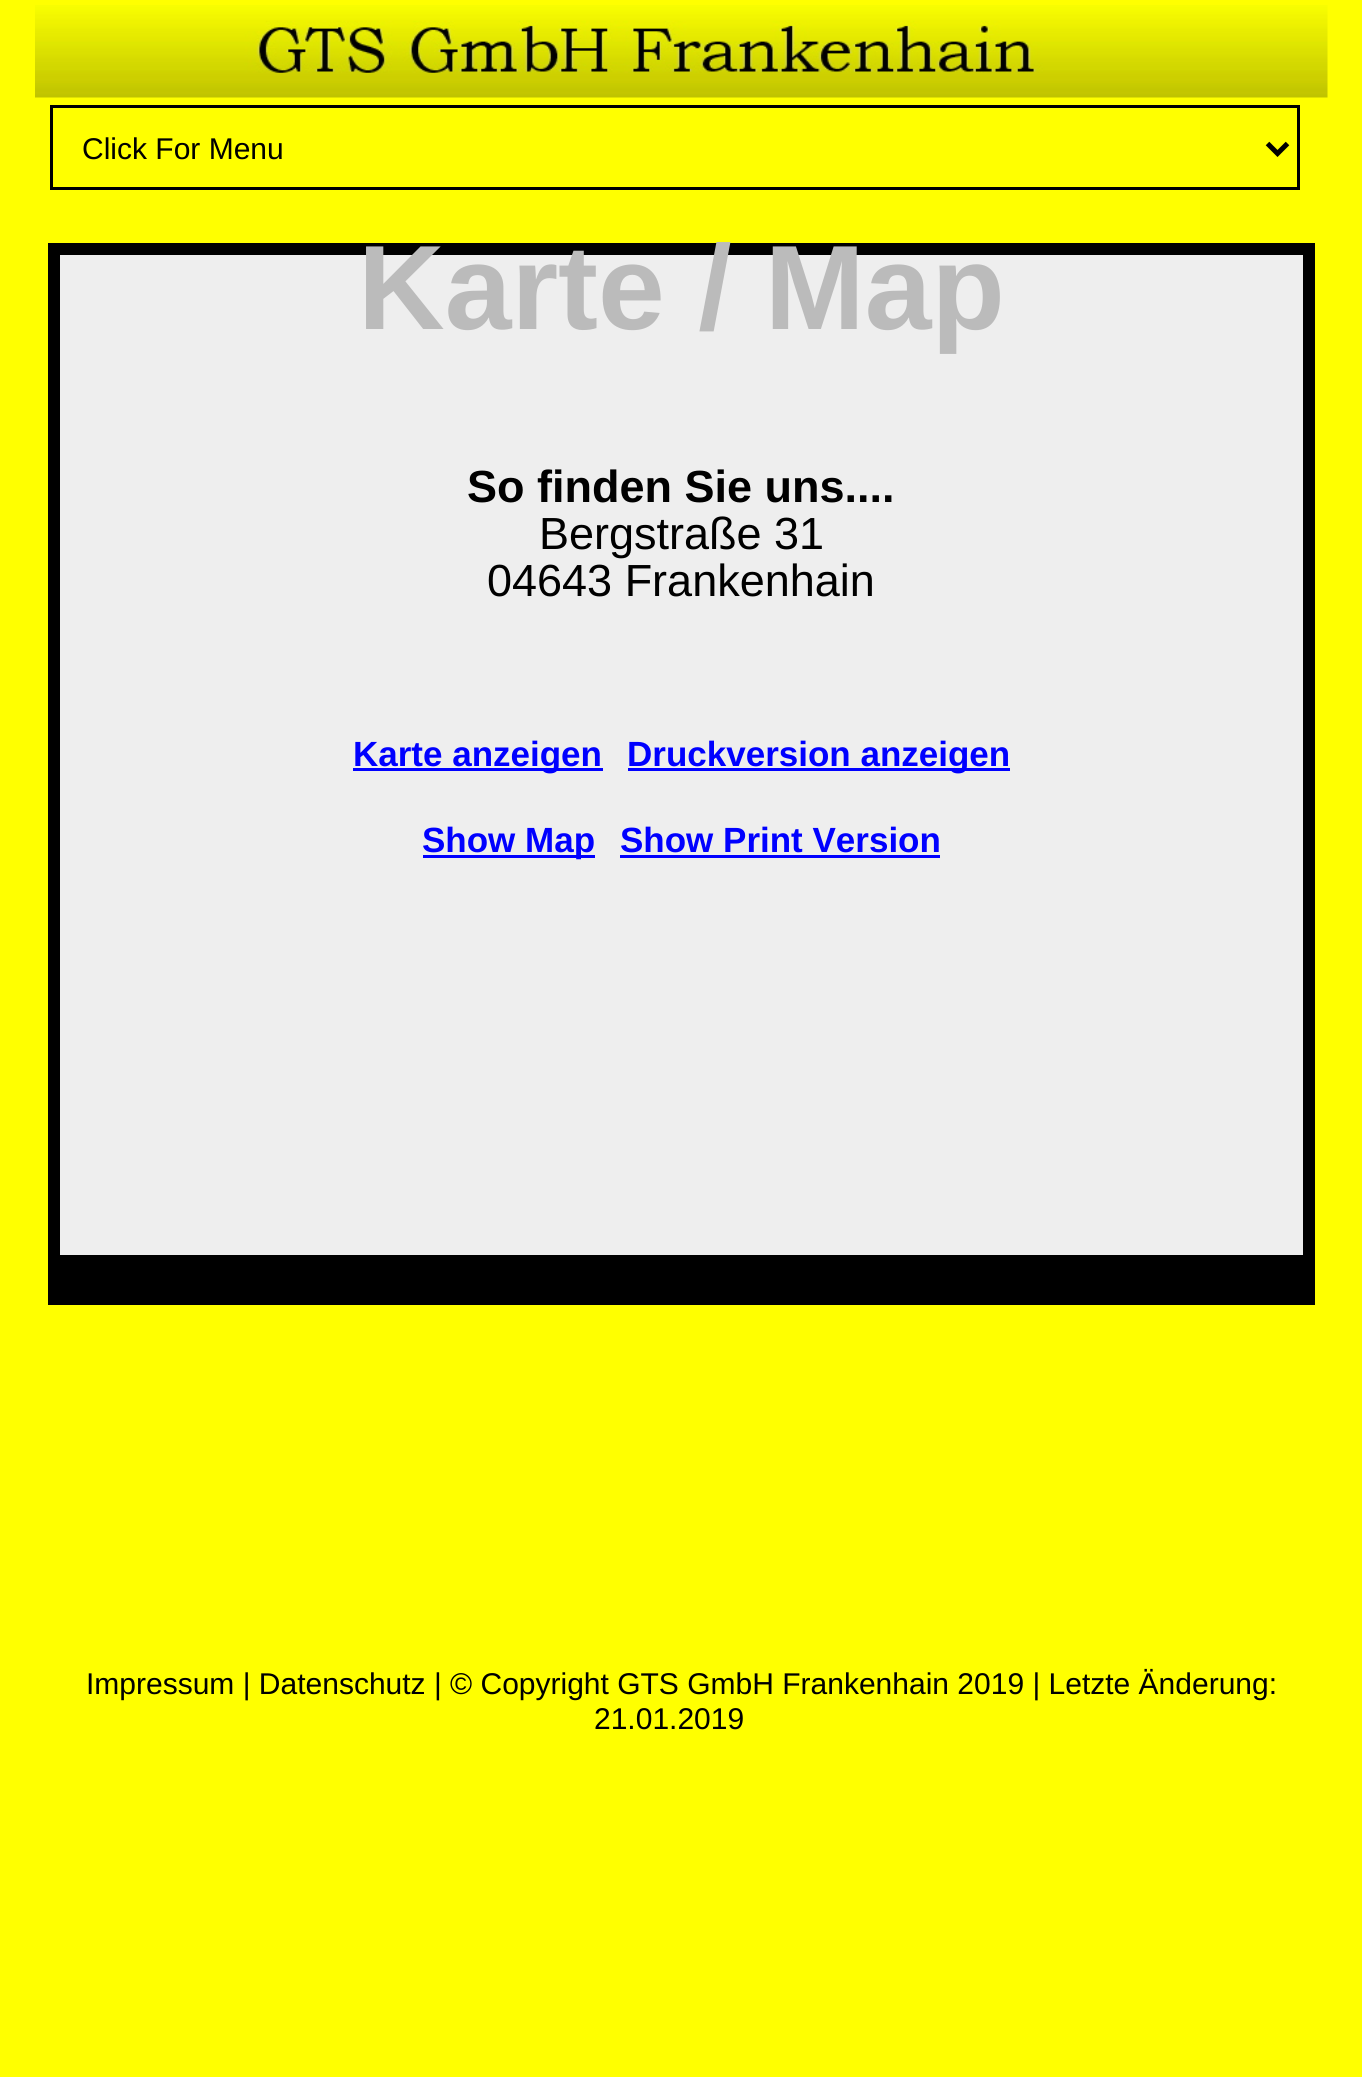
#include <cairo.h>
#include <math.h>
#include <stddef.h>


static void ink(cairo_t *ctx, unsigned color) {
    cairo_set_source_rgb(ctx, (color >> 16) / 255.0, (color >> 8 & 255) / 255.0, (color & 255) / 255.0);
}

static void paste(cairo_t *ctx, const char *path, double x, double y, double w, double h) {
    cairo_surface_t *image = cairo_image_surface_create_from_png(path);
    cairo_save(ctx);
    cairo_set_source_surface(ctx, image, x, y);
    cairo_rectangle(ctx, x, y, w, h);
    cairo_fill(ctx);
    cairo_restore(ctx);
    cairo_surface_destroy(image);
}

int main(void) {
    cairo_surface_t *surface = cairo_image_surface_create(CAIRO_FORMAT_RGB24, 1362, 2077);
    cairo_t *ctx = cairo_create(surface);
    cairo_font_options_t *options = cairo_font_options_create();
    cairo_font_options_set_hint_metrics(options, CAIRO_HINT_METRICS_OFF);
    cairo_font_options_set_hint_style(options, CAIRO_HINT_STYLE_NONE);
    cairo_set_font_options(ctx, options);
    cairo_set_miter_limit(ctx, 4);
    ink(ctx, 0xFFFF00);
    cairo_paint(ctx);
    paste(ctx, "media/1.png", 35, 5, 1293, 93);
    cairo_rectangle(ctx, 51.5, 106.5, 1247, 82);
    ink(ctx, 0x000000);
    cairo_set_line_width(ctx, 3);
    cairo_stroke(ctx);
    cairo_new_path(ctx);
    cairo_move_to(ctx, 1267.5, 143.5);
    cairo_line_to(ctx, 1277.5, 153.5);
    cairo_line_to(ctx, 1287.5, 143.5);
    cairo_set_line_width(ctx, 5);
    cairo_stroke(ctx);
    cairo_select_font_face(ctx, "Liberation Sans", CAIRO_FONT_SLANT_NORMAL, CAIRO_FONT_WEIGHT_NORMAL);
    cairo_set_font_size(ctx, 30);
    cairo_move_to(ctx, 82, 159);
    cairo_show_text(ctx, "Click For Menu");
    cairo_rectangle(ctx, 48, 243, 1267, 1062);
    cairo_fill(ctx);
    ink(ctx, 0xEEEEEE);
    cairo_rectangle(ctx, 60, 255, 1243, 1000);
    cairo_fill(ctx);
    cairo_select_font_face(ctx, "Liberation Sans", CAIRO_FONT_SLANT_NORMAL, CAIRO_FONT_WEIGHT_BOLD);
    cairo_set_font_size(ctx, 120);
    ink(ctx, 0xBBBBBB);
    cairo_move_to(ctx, 358, 329);
    cairo_show_text(ctx, "Karte / Map");
    cairo_set_font_size(ctx, 45);
    ink(ctx, 0x000000);
    cairo_move_to(ctx, 467, 502);
    cairo_show_text(ctx, "So finden Sie uns....");
    cairo_select_font_face(ctx, "Liberation Sans", CAIRO_FONT_SLANT_NORMAL, CAIRO_FONT_WEIGHT_NORMAL);
    cairo_move_to(ctx, 539, 549);
    cairo_show_text(ctx, "Bergstraße 31");
    cairo_move_to(ctx, 487, 596);
    cairo_show_text(ctx, "04643 Frankenhain");
    ink(ctx, 0x0000FF);
    cairo_rectangle(ctx, 353, 768, 250, 3);
    cairo_fill(ctx);
    cairo_select_font_face(ctx, "Liberation Sans", CAIRO_FONT_SLANT_NORMAL, CAIRO_FONT_WEIGHT_BOLD);
    cairo_set_font_size(ctx, 35);
    cairo_move_to(ctx, 353, 766);
    cairo_show_text(ctx, "Karte anzeigen");
    cairo_rectangle(ctx, 628, 768, 382, 3);
    cairo_fill(ctx);
    cairo_move_to(ctx, 627, 766);
    cairo_show_text(ctx, "Druckversion anzeigen");
    cairo_rectangle(ctx, 423, 855, 172, 3);
    cairo_fill(ctx);
    cairo_move_to(ctx, 422, 852);
    cairo_show_text(ctx, "Show Map");
    cairo_move_to(ctx, 620, 852);
    cairo_show_text(ctx, "Show Print Version");
    cairo_rectangle(ctx, 620, 855, 320, 3);
    cairo_fill(ctx);
    cairo_select_font_face(ctx, "Liberation Sans", CAIRO_FONT_SLANT_NORMAL, CAIRO_FONT_WEIGHT_NORMAL);
    cairo_set_font_size(ctx, 30);
    ink(ctx, 0x000000);
    cairo_move_to(ctx, 86, 1694);
    cairo_show_text(ctx, "Impressum | Datenschutz | © Copyright GTS GmbH Frankenhain 2019 | Letzte Änderung:");
    cairo_move_to(ctx, 594, 1729);
    cairo_show_text(ctx, "21.01.2019");
    cairo_surface_write_to_png(surface, "image.png");
    cairo_font_options_destroy(options);
    cairo_destroy(ctx);
    cairo_surface_destroy(surface);
    return 0;
}
